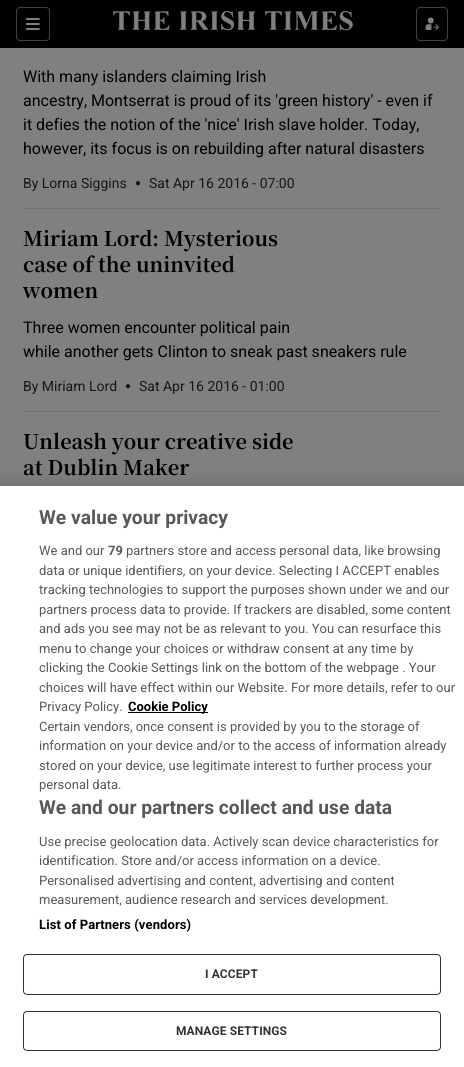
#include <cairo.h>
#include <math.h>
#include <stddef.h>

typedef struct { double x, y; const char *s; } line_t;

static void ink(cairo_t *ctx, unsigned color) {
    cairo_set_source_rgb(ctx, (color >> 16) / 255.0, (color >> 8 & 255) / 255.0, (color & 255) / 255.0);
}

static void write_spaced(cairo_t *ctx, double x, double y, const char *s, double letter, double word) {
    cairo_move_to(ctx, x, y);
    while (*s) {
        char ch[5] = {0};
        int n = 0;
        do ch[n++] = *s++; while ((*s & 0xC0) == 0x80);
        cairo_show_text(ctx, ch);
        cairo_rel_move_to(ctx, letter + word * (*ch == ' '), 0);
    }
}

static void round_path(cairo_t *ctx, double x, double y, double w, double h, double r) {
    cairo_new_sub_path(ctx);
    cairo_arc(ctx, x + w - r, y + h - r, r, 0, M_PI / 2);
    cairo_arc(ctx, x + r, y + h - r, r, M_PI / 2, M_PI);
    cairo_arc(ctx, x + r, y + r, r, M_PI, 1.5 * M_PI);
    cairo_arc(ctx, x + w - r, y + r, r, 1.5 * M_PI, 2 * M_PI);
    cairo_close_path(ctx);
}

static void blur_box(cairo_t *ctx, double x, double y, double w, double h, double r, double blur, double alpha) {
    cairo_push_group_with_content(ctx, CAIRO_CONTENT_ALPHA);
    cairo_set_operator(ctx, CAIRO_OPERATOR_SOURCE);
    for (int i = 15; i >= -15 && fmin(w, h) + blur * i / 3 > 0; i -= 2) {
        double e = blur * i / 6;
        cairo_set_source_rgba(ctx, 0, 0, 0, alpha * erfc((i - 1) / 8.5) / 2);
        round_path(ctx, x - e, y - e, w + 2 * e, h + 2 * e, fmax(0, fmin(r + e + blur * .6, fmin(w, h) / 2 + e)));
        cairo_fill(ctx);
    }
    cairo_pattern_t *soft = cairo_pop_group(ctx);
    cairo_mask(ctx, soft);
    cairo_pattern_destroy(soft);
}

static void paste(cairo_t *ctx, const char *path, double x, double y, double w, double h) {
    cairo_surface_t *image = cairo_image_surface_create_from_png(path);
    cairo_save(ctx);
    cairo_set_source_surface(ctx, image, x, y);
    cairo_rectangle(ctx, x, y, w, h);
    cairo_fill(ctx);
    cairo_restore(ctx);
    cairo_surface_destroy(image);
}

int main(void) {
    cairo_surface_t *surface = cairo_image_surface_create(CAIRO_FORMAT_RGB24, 464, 1067);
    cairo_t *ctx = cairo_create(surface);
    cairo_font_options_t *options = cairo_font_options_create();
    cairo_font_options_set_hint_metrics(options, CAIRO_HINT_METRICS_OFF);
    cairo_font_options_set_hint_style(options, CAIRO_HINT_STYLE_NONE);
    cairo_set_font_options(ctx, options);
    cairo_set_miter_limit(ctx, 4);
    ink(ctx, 0x808080);
    cairo_paint(ctx);
    ink(ctx, 0x000000);
    cairo_rectangle(ctx, 0, 0, 464, 48);
    cairo_fill(ctx);
    round_path(ctx, 16.5, 7.5, 33, 33, 3.5);
    ink(ctx, 0x404040);
    cairo_set_line_width(ctx, 1);
    cairo_stroke(ctx);
    paste(ctx, "media/1.png", 25, 18, 15, 12);
    paste(ctx, "media/2.png", 113, 11, 240, 20);
    round_path(ctx, 416.5, 7.5, 31, 33, 3.5);
    cairo_stroke(ctx);
    paste(ctx, "media/3.png", 425, 17, 14, 13);
    ink(ctx, 0x707070);
    cairo_rectangle(ctx, 23, 208, 418, 1);
    cairo_fill(ctx);
    cairo_select_font_face(ctx, "Roboto", CAIRO_FONT_SLANT_NORMAL, CAIRO_FONT_WEIGHT_NORMAL);
    cairo_set_font_size(ctx, 16);
    ink(ctx, 0x000000);
    {
        static const line_t items[] = {
            {23, 82, "With many islanders claiming Irish"},
            {23, 106, "ancestry, Montserrat is proud of its 'green history' - even if"},
            {23, 130, "it defies the notion of the 'nice' Irish slave holder. Today,"},
            {23, 154, "however, its focus is on rebuilding after natural disasters"},
        };
        for (size_t i = 0; i < sizeof items / sizeof *items; i++) {
            cairo_move_to(ctx, items[i].x, items[i].y);
            cairo_show_text(ctx, items[i].s);
        }
    }
    cairo_set_font_size(ctx, 14);
    ink(ctx, 0x171717);
    cairo_move_to(ctx, 23, 188);
    cairo_show_text(ctx, "By Lorna Siggins");
    cairo_select_font_face(ctx, "Liberation Sans", CAIRO_FONT_SLANT_NORMAL, CAIRO_FONT_WEIGHT_NORMAL);
    cairo_set_font_size(ctx, 10);
    cairo_move_to(ctx, 135, 186);
    cairo_show_text(ctx, "●");
    cairo_select_font_face(ctx, "Roboto", CAIRO_FONT_SLANT_NORMAL, CAIRO_FONT_WEIGHT_NORMAL);
    cairo_set_font_size(ctx, 14);
    cairo_move_to(ctx, 149, 188);
    cairo_show_text(ctx, "Sat Apr 16 2016 - 07:00");
    ink(ctx, 0x707070);
    cairo_rectangle(ctx, 23, 411, 418, 1);
    cairo_fill(ctx);
    cairo_select_font_face(ctx, "Noto Serif JP ExtraLight", CAIRO_FONT_SLANT_NORMAL, CAIRO_FONT_WEIGHT_NORMAL);
    cairo_set_font_size(ctx, 20);
    ink(ctx, 0x000000);
    {
        static const line_t items[] = {
            {23, 246, "Miriam Lord: Mysterious"},
            {23, 272, "case of the uninvited"},
            {23, 298, "women"},
        };
        for (size_t i = 0; i < sizeof items / sizeof *items; i++) {
            cairo_move_to(ctx, items[i].x, items[i].y);
            cairo_show_text(ctx, items[i].s);
        }
    }
    cairo_select_font_face(ctx, "Roboto", CAIRO_FONT_SLANT_NORMAL, CAIRO_FONT_WEIGHT_NORMAL);
    cairo_set_font_size(ctx, 16);
    cairo_move_to(ctx, 23, 333);
    cairo_show_text(ctx, "Three women encounter political pain");
    cairo_move_to(ctx, 23, 357);
    cairo_show_text(ctx, "while another gets Clinton to sneak past sneakers rule");
    cairo_set_font_size(ctx, 14);
    ink(ctx, 0x171717);
    cairo_move_to(ctx, 23, 391);
    cairo_show_text(ctx, "By Miriam Lord");
    cairo_select_font_face(ctx, "Liberation Sans", CAIRO_FONT_SLANT_NORMAL, CAIRO_FONT_WEIGHT_NORMAL);
    cairo_set_font_size(ctx, 10);
    cairo_move_to(ctx, 125, 389);
    cairo_show_text(ctx, "●");
    cairo_select_font_face(ctx, "Roboto", CAIRO_FONT_SLANT_NORMAL, CAIRO_FONT_WEIGHT_NORMAL);
    cairo_set_font_size(ctx, 14);
    cairo_move_to(ctx, 139, 391);
    cairo_show_text(ctx, "Sat Apr 16 2016 - 01:00");
    cairo_select_font_face(ctx, "Noto Serif JP ExtraLight", CAIRO_FONT_SLANT_NORMAL, CAIRO_FONT_WEIGHT_NORMAL);
    cairo_set_font_size(ctx, 20);
    ink(ctx, 0x000000);
    cairo_move_to(ctx, 23, 449);
    cairo_show_text(ctx, "Unleash your creative side");
    cairo_move_to(ctx, 23, 475);
    cairo_show_text(ctx, "at Dublin Maker");
    ink(ctx, 0x000000);
    blur_box(ctx, 0, 486, 464, 581, 0, 9, 0.2);
    ink(ctx, 0xFFFFFF);
    cairo_rectangle(ctx, 0, 486, 464, 581);
    cairo_fill(ctx);
    cairo_select_font_face(ctx, "Roboto", CAIRO_FONT_SLANT_NORMAL, CAIRO_FONT_WEIGHT_BOLD);
    cairo_set_font_size(ctx, 19.25);
    ink(ctx, 0x585858);
    cairo_move_to(ctx, 39, 524);
    cairo_show_text(ctx, "We value your privacy");
    cairo_select_font_face(ctx, "Roboto", CAIRO_FONT_SLANT_NORMAL, CAIRO_FONT_WEIGHT_NORMAL);
    cairo_set_font_size(ctx, 13);
    cairo_move_to(ctx, 39, 555);
    cairo_show_text(ctx, "We and our");
    cairo_select_font_face(ctx, "Roboto", CAIRO_FONT_SLANT_NORMAL, CAIRO_FONT_WEIGHT_BOLD);
    cairo_move_to(ctx, 108, 555);
    cairo_show_text(ctx, "79");
    cairo_select_font_face(ctx, "Roboto", CAIRO_FONT_SLANT_NORMAL, CAIRO_FONT_WEIGHT_NORMAL);
    {
        static const line_t items[] = {
            {126, 555, "partners store and access personal data, like browsing"},
            {39, 575, "data or unique identifiers, on your device. Selecting I ACCEPT enables"},
            {39, 594, "tracking technologies to support the purposes shown under we and our"},
            {39, 614, "partners process data to provide. If trackers are disabled, some content"},
            {39, 633, "and ads you see may not be as relevant to you. You can resurface this"},
            {39, 653, "menu to change your choices or withdraw consent at any time by"},
            {39, 672, "clicking the Cookie Settings link on the bottom of the webpage . Your"},
            {39, 692, "choices will have effect within our Website. For more details, refer to our"},
            {39, 711, "Privacy Policy."},
        };
        for (size_t i = 0; i < sizeof items / sizeof *items; i++) {
            cairo_move_to(ctx, items[i].x, items[i].y);
            cairo_show_text(ctx, items[i].s);
        }
    }
    ink(ctx, 0x000000);
    cairo_rectangle(ctx, 128, 712, 80, 1);
    cairo_fill(ctx);
    cairo_select_font_face(ctx, "Roboto", CAIRO_FONT_SLANT_NORMAL, CAIRO_FONT_WEIGHT_BOLD);
    cairo_move_to(ctx, 128, 711);
    cairo_show_text(ctx, "Cookie Policy");
    cairo_select_font_face(ctx, "Roboto", CAIRO_FONT_SLANT_NORMAL, CAIRO_FONT_WEIGHT_NORMAL);
    ink(ctx, 0x585858);
    {
        static const line_t items[] = {
            {39, 731, "Certain vendors, once consent is provided by you to the storage of"},
            {39, 750, "information on your device and/or to the access of information already"},
            {39, 770, "stored on your device, use legitimate interest to further process your"},
            {39, 789, "personal data."},
        };
        for (size_t i = 0; i < sizeof items / sizeof *items; i++) {
            cairo_move_to(ctx, items[i].x, items[i].y);
            cairo_show_text(ctx, items[i].s);
        }
    }
    cairo_select_font_face(ctx, "Roboto", CAIRO_FONT_SLANT_NORMAL, CAIRO_FONT_WEIGHT_BOLD);
    cairo_set_font_size(ctx, 19.25);
    cairo_move_to(ctx, 39, 814);
    cairo_show_text(ctx, "We and our partners collect and use data");
    cairo_select_font_face(ctx, "Roboto", CAIRO_FONT_SLANT_NORMAL, CAIRO_FONT_WEIGHT_NORMAL);
    cairo_set_font_size(ctx, 13);
    {
        static const line_t items[] = {
            {39, 846, "Use precise geolocation data. Actively scan device characteristics for"},
            {39, 865, "identification. Store and/or access information on a device."},
            {39, 885, "Personalised advertising and content, advertising and content"},
            {39, 904, "measurement, audience research and services development."},
        };
        for (size_t i = 0; i < sizeof items / sizeof *items; i++) {
            cairo_move_to(ctx, items[i].x, items[i].y);
            cairo_show_text(ctx, items[i].s);
        }
    }
    cairo_select_font_face(ctx, "Roboto", CAIRO_FONT_SLANT_NORMAL, CAIRO_FONT_WEIGHT_BOLD);
    ink(ctx, 0x000000);
    write_spaced(ctx, 39, 929, "List of Partners (vendors)", 0.1, 0);
    round_path(ctx, 23.5, 954.5, 417, 40, 3.5);
    ink(ctx, 0x333333);
    cairo_stroke(ctx);
    cairo_set_font_size(ctx, 12);
    write_spaced(ctx, 205, 978, "I ACCEPT", 0.1, 0);
    round_path(ctx, 23.5, 1011.5, 417, 39, 3.5);
    cairo_stroke(ctx);
    write_spaced(ctx, 176, 1035, "MANAGE SETTINGS", 0.1, 0);
    cairo_surface_write_to_png(surface, "image.png");
    cairo_font_options_destroy(options);
    cairo_destroy(ctx);
    cairo_surface_destroy(surface);
    return 0;
}
